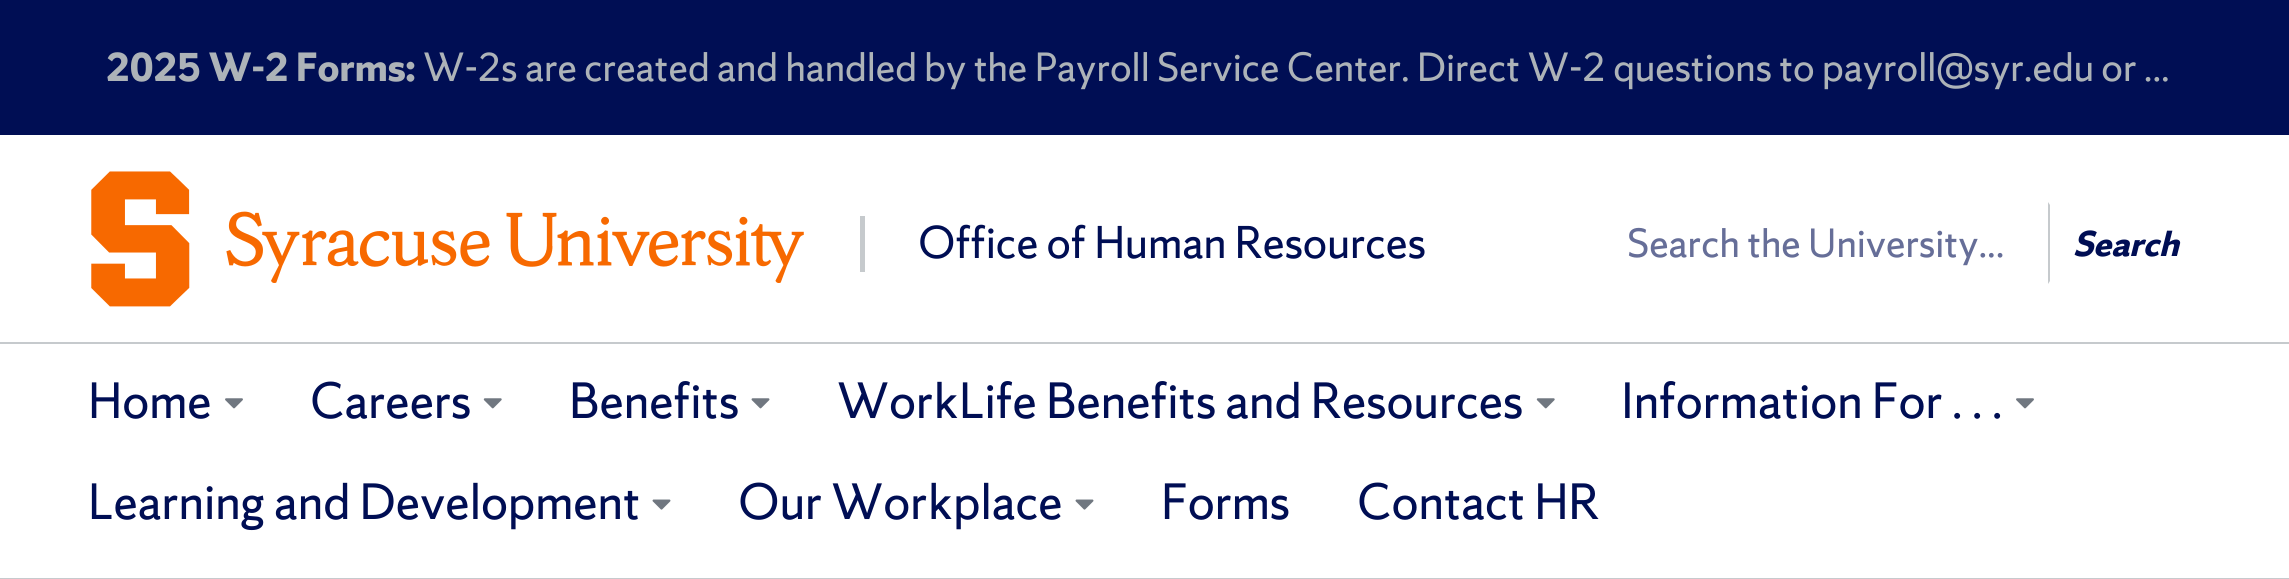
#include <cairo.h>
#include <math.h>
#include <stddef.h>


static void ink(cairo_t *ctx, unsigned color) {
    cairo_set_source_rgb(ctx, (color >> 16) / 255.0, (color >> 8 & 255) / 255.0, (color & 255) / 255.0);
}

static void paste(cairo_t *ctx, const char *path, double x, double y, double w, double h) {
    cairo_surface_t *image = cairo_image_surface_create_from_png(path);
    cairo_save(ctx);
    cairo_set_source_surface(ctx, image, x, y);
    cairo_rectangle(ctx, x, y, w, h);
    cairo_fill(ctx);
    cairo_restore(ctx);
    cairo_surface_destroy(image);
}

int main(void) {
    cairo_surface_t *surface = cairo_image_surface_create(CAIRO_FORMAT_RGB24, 2289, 579);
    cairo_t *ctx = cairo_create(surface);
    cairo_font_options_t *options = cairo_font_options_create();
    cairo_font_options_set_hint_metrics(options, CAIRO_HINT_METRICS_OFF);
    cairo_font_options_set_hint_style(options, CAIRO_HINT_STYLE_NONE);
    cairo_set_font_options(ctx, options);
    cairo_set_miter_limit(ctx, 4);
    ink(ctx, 0x000E54);
    cairo_paint(ctx);
    cairo_select_font_face(ctx, "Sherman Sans", CAIRO_FONT_SLANT_NORMAL, CAIRO_FONT_WEIGHT_BOLD);
    cairo_set_font_size(ctx, 36);
    ink(ctx, 0xADB3B8);
    cairo_move_to(ctx, 106, 81);
    cairo_show_text(ctx, "2025 W-2 Forms:");
    cairo_select_font_face(ctx, "Sherman Sans", CAIRO_FONT_SLANT_NORMAL, CAIRO_FONT_WEIGHT_NORMAL);
    cairo_move_to(ctx, 423, 81);
    cairo_show_text(ctx, "W-2s are created and handled by the Payroll Service Center. Direct W-2 questions to payroll@syr.edu or ...");
    ink(ctx, 0xFFFFFF);
    cairo_rectangle(ctx, 0, 135, 2289, 443);
    cairo_fill(ctx);
    ink(ctx, 0xC6CACD);
    cairo_rectangle(ctx, 0, 342, 2289, 2);
    cairo_fill(ctx);
    paste(ctx, "media/1.png", 91, 171, 713, 136);
    cairo_rectangle(ctx, 860, 216, 5, 56);
    cairo_fill(ctx);
    cairo_set_font_size(ctx, 40.5);
    ink(ctx, 0x000E54);
    cairo_move_to(ctx, 918, 258);
    cairo_show_text(ctx, "Office of Human Resources");
    cairo_set_font_size(ctx, 36);
    ink(ctx, 0x666E98);
    cairo_move_to(ctx, 1627, 257);
    cairo_show_text(ctx, "Search the University...");
    ink(ctx, 0xC6CACD);
    cairo_new_path(ctx);
    cairo_move_to(ctx, 2048, 284);
    cairo_line_to(ctx, 2048, 202);
    cairo_line_to(ctx, 2050, 205);
    cairo_line_to(ctx, 2050, 281);
    cairo_close_path(ctx);
    cairo_fill(ctx);
    cairo_select_font_face(ctx, "Sherman Sans", CAIRO_FONT_SLANT_ITALIC, CAIRO_FONT_WEIGHT_BOLD);
    cairo_set_font_size(ctx, 31.5);
    ink(ctx, 0x000E54);
    cairo_move_to(ctx, 2073, 256);
    cairo_show_text(ctx, "Search");
    ink(ctx, 0xC6CACD);
    cairo_rectangle(ctx, 0, 578, 2289, 1);
    cairo_fill(ctx);
    cairo_select_font_face(ctx, "Sherman Sans", CAIRO_FONT_SLANT_NORMAL, CAIRO_FONT_WEIGHT_NORMAL);
    cairo_set_font_size(ctx, 45);
    ink(ctx, 0x000E54);
    cairo_move_to(ctx, 88, 418);
    cairo_show_text(ctx, "Home");
    paste(ctx, "media/2.png", 225, 398, 18, 11);
    cairo_move_to(ctx, 310, 418);
    cairo_show_text(ctx, "Careers");
    paste(ctx, "media/3.png", 483, 398, 19, 11);
    cairo_move_to(ctx, 569, 418);
    cairo_show_text(ctx, "Benefits");
    paste(ctx, "media/4.png", 751, 398, 19, 11);
    cairo_move_to(ctx, 837, 418);
    cairo_show_text(ctx, "WorkLife Benefits and Resources");
    paste(ctx, "media/3.png", 1536, 398, 19, 11);
    cairo_move_to(ctx, 1621, 418);
    cairo_show_text(ctx, "Information For . . .");
    paste(ctx, "media/2.png", 2016, 398, 18, 11);
    cairo_move_to(ctx, 88, 519);
    cairo_show_text(ctx, "Learning and Development");
    paste(ctx, "media/5.png", 652, 499, 19, 11);
    cairo_move_to(ctx, 738, 519);
    cairo_show_text(ctx, "Our Workplace");
    paste(ctx, "media/5.png", 1075, 499, 19, 11);
    cairo_move_to(ctx, 1161, 519);
    cairo_show_text(ctx, "Forms");
    cairo_move_to(ctx, 1357, 519);
    cairo_show_text(ctx, "Contact HR");
    cairo_surface_write_to_png(surface, "image.png");
    cairo_font_options_destroy(options);
    cairo_destroy(ctx);
    cairo_surface_destroy(surface);
    return 0;
}
